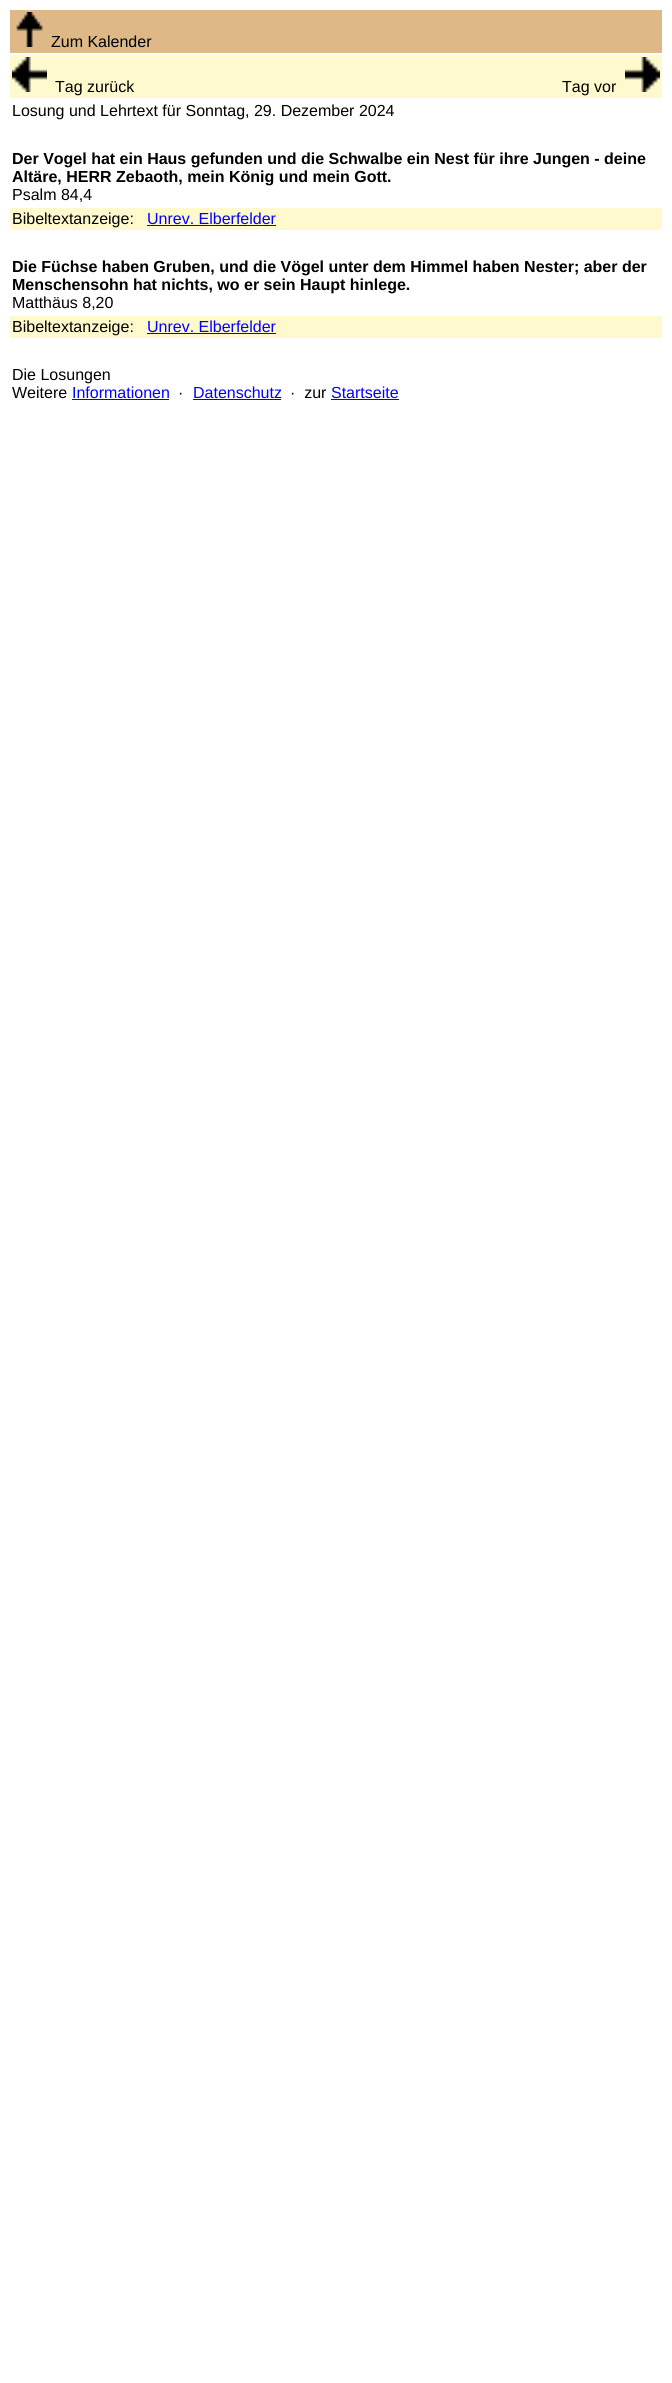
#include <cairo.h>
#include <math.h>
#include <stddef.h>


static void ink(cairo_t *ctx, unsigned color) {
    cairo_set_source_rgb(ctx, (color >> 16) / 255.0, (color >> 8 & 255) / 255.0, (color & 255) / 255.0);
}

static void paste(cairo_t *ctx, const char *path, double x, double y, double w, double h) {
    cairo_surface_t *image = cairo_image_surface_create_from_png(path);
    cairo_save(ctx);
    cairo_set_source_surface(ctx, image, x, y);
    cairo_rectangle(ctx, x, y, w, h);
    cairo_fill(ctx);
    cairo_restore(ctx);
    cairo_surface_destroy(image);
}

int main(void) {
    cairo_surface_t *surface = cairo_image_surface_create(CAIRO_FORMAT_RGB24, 672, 2383);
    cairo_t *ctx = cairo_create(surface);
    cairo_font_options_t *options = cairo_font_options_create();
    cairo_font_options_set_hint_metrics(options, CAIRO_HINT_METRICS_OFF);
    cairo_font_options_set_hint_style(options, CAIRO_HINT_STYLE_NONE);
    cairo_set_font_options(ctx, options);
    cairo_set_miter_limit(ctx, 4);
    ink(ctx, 0xFFFFFF);
    cairo_paint(ctx);
    ink(ctx, 0xDEB887);
    cairo_rectangle(ctx, 10, 10, 652, 43);
    cairo_fill(ctx);
    paste(ctx, "media/1.png", 16, 12, 27, 35);
    cairo_select_font_face(ctx, "Liberation Sans", CAIRO_FONT_SLANT_NORMAL, CAIRO_FONT_WEIGHT_NORMAL);
    cairo_set_font_size(ctx, 16);
    ink(ctx, 0x000000);
    cairo_move_to(ctx, 51, 47);
    cairo_show_text(ctx, "Zum Kalender");
    ink(ctx, 0xFFFACD);
    cairo_rectangle(ctx, 10, 55, 652, 43);
    cairo_fill(ctx);
    paste(ctx, "media/2.png", 12, 57, 35, 35);
    ink(ctx, 0x000000);
    cairo_move_to(ctx, 55, 92);
    cairo_show_text(ctx, "Tag zurück");
    cairo_move_to(ctx, 562, 92);
    cairo_show_text(ctx, "Tag vor");
    paste(ctx, "media/3.png", 625, 57, 35, 35);
    cairo_move_to(ctx, 12, 116);
    cairo_show_text(ctx, "Losung und Lehrtext für Sonntag, 29. Dezember 2024");
    cairo_select_font_face(ctx, "Liberation Sans", CAIRO_FONT_SLANT_NORMAL, CAIRO_FONT_WEIGHT_BOLD);
    cairo_move_to(ctx, 12, 164);
    cairo_show_text(ctx, "Der Vogel hat ein Haus gefunden und die Schwalbe ein Nest für ihre Jungen - deine");
    cairo_move_to(ctx, 12, 182);
    cairo_show_text(ctx, "Altäre, HERR Zebaoth, mein König und mein Gott.");
    cairo_select_font_face(ctx, "Liberation Sans", CAIRO_FONT_SLANT_NORMAL, CAIRO_FONT_WEIGHT_NORMAL);
    cairo_move_to(ctx, 12, 200);
    cairo_show_text(ctx, "Psalm 84,4");
    ink(ctx, 0xFFFACD);
    cairo_rectangle(ctx, 10, 208, 652, 22);
    cairo_fill(ctx);
    ink(ctx, 0x000000);
    cairo_move_to(ctx, 12, 224);
    cairo_show_text(ctx, "Bibeltextanzeige:");
    ink(ctx, 0x0000FF);
    cairo_move_to(ctx, 147, 224);
    cairo_show_text(ctx, "Unrev. Elberfelder");
    cairo_rectangle(ctx, 147, 225, 129, 1);
    cairo_fill(ctx);
    cairo_select_font_face(ctx, "Liberation Sans", CAIRO_FONT_SLANT_NORMAL, CAIRO_FONT_WEIGHT_BOLD);
    ink(ctx, 0x000000);
    cairo_move_to(ctx, 12, 272);
    cairo_show_text(ctx, "Die Füchse haben Gruben, und die Vögel unter dem Himmel haben Nester; aber der");
    cairo_move_to(ctx, 12, 290);
    cairo_show_text(ctx, "Menschensohn hat nichts, wo er sein Haupt hinlege.");
    cairo_select_font_face(ctx, "Liberation Sans", CAIRO_FONT_SLANT_NORMAL, CAIRO_FONT_WEIGHT_NORMAL);
    cairo_move_to(ctx, 12, 308);
    cairo_show_text(ctx, "Matthäus 8,20");
    ink(ctx, 0xFFFACD);
    cairo_rectangle(ctx, 10, 316, 652, 22);
    cairo_fill(ctx);
    ink(ctx, 0x000000);
    cairo_move_to(ctx, 12, 332);
    cairo_show_text(ctx, "Bibeltextanzeige:");
    ink(ctx, 0x0000FF);
    cairo_move_to(ctx, 147, 332);
    cairo_show_text(ctx, "Unrev. Elberfelder");
    cairo_rectangle(ctx, 147, 333, 129, 1);
    cairo_fill(ctx);
    ink(ctx, 0x000000);
    cairo_move_to(ctx, 12, 380);
    cairo_show_text(ctx, "Die Losungen");
    cairo_move_to(ctx, 12, 398);
    cairo_show_text(ctx, "Weitere");
    ink(ctx, 0x0000FF);
    cairo_move_to(ctx, 72, 398);
    cairo_show_text(ctx, "Informationen");
    cairo_rectangle(ctx, 72, 399, 97, 1);
    cairo_fill(ctx);
    ink(ctx, 0x000000);
    cairo_move_to(ctx, 178, 398);
    cairo_show_text(ctx, "·");
    ink(ctx, 0x0000FF);
    cairo_move_to(ctx, 193, 398);
    cairo_show_text(ctx, "Datenschutz");
    cairo_rectangle(ctx, 193, 399, 88, 1);
    cairo_fill(ctx);
    ink(ctx, 0x000000);
    cairo_move_to(ctx, 290, 398);
    cairo_show_text(ctx, "·  zur");
    ink(ctx, 0x0000FF);
    cairo_move_to(ctx, 331, 398);
    cairo_show_text(ctx, "Startseite");
    cairo_rectangle(ctx, 331, 399, 68, 1);
    cairo_fill(ctx);
    cairo_surface_write_to_png(surface, "image.png");
    cairo_font_options_destroy(options);
    cairo_destroy(ctx);
    cairo_surface_destroy(surface);
    return 0;
}
